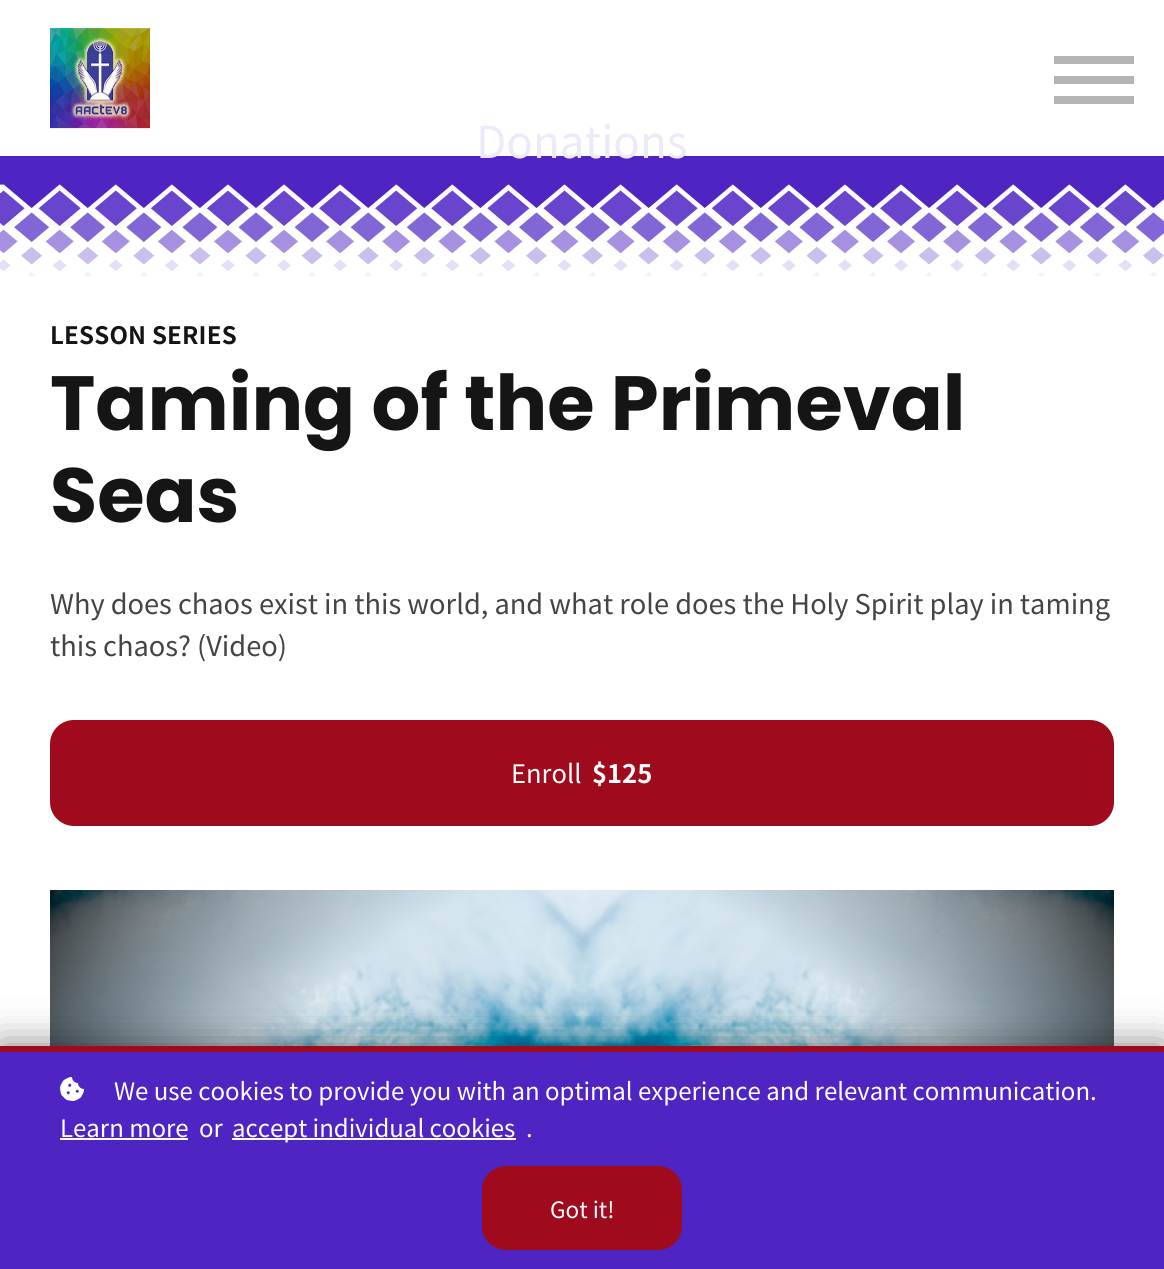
#include <cairo.h>
#include <math.h>
#include <stddef.h>

typedef struct { double x, y, w, h; unsigned color; } box_t;

static void ink(cairo_t *ctx, unsigned color) {
    cairo_set_source_rgb(ctx, (color >> 16) / 255.0, (color >> 8 & 255) / 255.0, (color & 255) / 255.0);
}

static void write_spaced(cairo_t *ctx, double x, double y, const char *s, double letter, double word) {
    cairo_move_to(ctx, x, y);
    while (*s) {
        char ch[5] = {0};
        int n = 0;
        do ch[n++] = *s++; while ((*s & 0xC0) == 0x80);
        cairo_show_text(ctx, ch);
        cairo_rel_move_to(ctx, letter + word * (*ch == ' '), 0);
    }
}

static void round_path(cairo_t *ctx, double x, double y, double w, double h, double r) {
    cairo_new_sub_path(ctx);
    cairo_arc(ctx, x + w - r, y + h - r, r, 0, M_PI / 2);
    cairo_arc(ctx, x + r, y + h - r, r, M_PI / 2, M_PI);
    cairo_arc(ctx, x + r, y + r, r, M_PI, 1.5 * M_PI);
    cairo_arc(ctx, x + w - r, y + r, r, 1.5 * M_PI, 2 * M_PI);
    cairo_close_path(ctx);
}

static void blur_box(cairo_t *ctx, double x, double y, double w, double h, double r, double blur, double alpha) {
    cairo_push_group_with_content(ctx, CAIRO_CONTENT_ALPHA);
    cairo_set_operator(ctx, CAIRO_OPERATOR_SOURCE);
    for (int i = 15; i >= -15 && fmin(w, h) + blur * i / 3 > 0; i -= 2) {
        double e = blur * i / 6;
        cairo_set_source_rgba(ctx, 0, 0, 0, alpha * erfc((i - 1) / 8.5) / 2);
        round_path(ctx, x - e, y - e, w + 2 * e, h + 2 * e, fmax(0, fmin(r + e + blur * .6, fmin(w, h) / 2 + e)));
        cairo_fill(ctx);
    }
    cairo_pattern_t *soft = cairo_pop_group(ctx);
    cairo_mask(ctx, soft);
    cairo_pattern_destroy(soft);
}

static void paste(cairo_t *ctx, const char *path, double x, double y, double w, double h) {
    cairo_surface_t *image = cairo_image_surface_create_from_png(path);
    cairo_save(ctx);
    cairo_set_source_surface(ctx, image, x, y);
    cairo_rectangle(ctx, x, y, w, h);
    cairo_fill(ctx);
    cairo_restore(ctx);
    cairo_surface_destroy(image);
}

int main(void) {
    cairo_surface_t *surface = cairo_image_surface_create(CAIRO_FORMAT_RGB24, 1164, 1269);
    cairo_t *ctx = cairo_create(surface);
    cairo_font_options_t *options = cairo_font_options_create();
    cairo_font_options_set_hint_metrics(options, CAIRO_HINT_METRICS_OFF);
    cairo_font_options_set_hint_style(options, CAIRO_HINT_STYLE_NONE);
    cairo_set_font_options(ctx, options);
    cairo_set_miter_limit(ctx, 4);
    ink(ctx, 0xFFFFFF);
    cairo_paint(ctx);
    paste(ctx, "media/1.png", 50, 28, 100, 101);
    {
        static const box_t items[] = {
            {1054, 96, 80, 8, 0xB4B4B4},
            {1054, 56, 80, 8, 0xB4B4B4},
            {1054, 76, 80, 8, 0xB4B4B4},
        };
        for (size_t i = 0; i < sizeof items / sizeof *items; i++) {
            ink(ctx, items[i].color);
            cairo_rectangle(ctx, items[i].x, items[i].y, items[i].w, items[i].h);
            cairo_fill(ctx);
        }
    }
    paste(ctx, "media/2.png", 0, 156, 1164, 120);
    cairo_select_font_face(ctx, "Noto Sans JP", CAIRO_FONT_SLANT_NORMAL, CAIRO_FONT_WEIGHT_NORMAL);
    cairo_set_font_size(ctx, 44);
    ink(ctx, 0xEDE9F9);
    cairo_move_to(ctx, 476, 158);
    cairo_show_text(ctx, "Donations");
    cairo_select_font_face(ctx, "Noto Sans JP", CAIRO_FONT_SLANT_NORMAL, CAIRO_FONT_WEIGHT_BOLD);
    cairo_set_font_size(ctx, 24);
    ink(ctx, 0x151515);
    write_spaced(ctx, 50, 344, "LESSON SERIES", 0.2, 0);
    cairo_select_font_face(ctx, "Poppins", CAIRO_FONT_SLANT_NORMAL, CAIRO_FONT_WEIGHT_BOLD);
    cairo_set_font_size(ctx, 76.75);
    cairo_move_to(ctx, 50, 430);
    cairo_show_text(ctx, "Taming of the Primeval");
    cairo_move_to(ctx, 50, 522);
    cairo_show_text(ctx, "Seas");
    cairo_select_font_face(ctx, "Noto Sans JP", CAIRO_FONT_SLANT_NORMAL, CAIRO_FONT_WEIGHT_NORMAL);
    cairo_set_font_size(ctx, 27.2);
    ink(ctx, 0x444444);
    cairo_move_to(ctx, 50, 614);
    cairo_show_text(ctx, "Why does chaos exist in this world, and what role does the Holy Spirit play in taming");
    cairo_move_to(ctx, 50, 656);
    cairo_show_text(ctx, "this chaos? (Video)");
    ink(ctx, 0x9F0B1C);
    round_path(ctx, 50, 720, 1064, 106, 24);
    cairo_fill(ctx);
    cairo_set_font_size(ctx, 25.5);
    ink(ctx, 0xFFFFFF);
    cairo_move_to(ctx, 511, 783);
    cairo_show_text(ctx, "Enroll");
    cairo_select_font_face(ctx, "Noto Sans JP", CAIRO_FONT_SLANT_NORMAL, CAIRO_FONT_WEIGHT_BOLD);
    cairo_move_to(ctx, 592, 783);
    cairo_show_text(ctx, "$125");
    paste(ctx, "media/3.png", 50, 890, 1064, 156);
    ink(ctx, 0x000000);
    blur_box(ctx, 0, 1046, 1164, 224, 0, 20, 0.5);
    ink(ctx, 0x4E24C3);
    cairo_rectangle(ctx, 0, 1052, 1164, 217);
    cairo_fill(ctx);
    ink(ctx, 0x9F0B1C);
    cairo_rectangle(ctx, 0, 1046, 1164, 6);
    cairo_fill(ctx);
    paste(ctx, "media/4.png", 60, 1077, 24, 24);
    cairo_select_font_face(ctx, "Noto Sans JP", CAIRO_FONT_SLANT_NORMAL, CAIRO_FONT_WEIGHT_NORMAL);
    cairo_set_font_size(ctx, 24);
    ink(ctx, 0xFFFFFF);
    cairo_move_to(ctx, 114, 1100);
    cairo_show_text(ctx, "We use cookies to provide you with an optimal experience and relevant communication.");
    cairo_move_to(ctx, 60, 1137);
    cairo_show_text(ctx, "Learn more");
    cairo_rectangle(ctx, 60, 1138, 128, 2);
    cairo_fill(ctx);
    cairo_move_to(ctx, 199, 1137);
    cairo_show_text(ctx, "or");
    cairo_rectangle(ctx, 232, 1138, 284, 2);
    cairo_fill(ctx);
    cairo_move_to(ctx, 232, 1137);
    cairo_show_text(ctx, "accept individual cookies");
    cairo_move_to(ctx, 526, 1137);
    cairo_show_text(ctx, ".");
    ink(ctx, 0x9F0B1C);
    round_path(ctx, 482, 1166, 200, 84, 24);
    cairo_fill(ctx);
    cairo_set_font_size(ctx, 22.5);
    ink(ctx, 0xFFFFFF);
    cairo_move_to(ctx, 550, 1218);
    cairo_show_text(ctx, "Got it!");
    cairo_surface_write_to_png(surface, "image.png");
    cairo_font_options_destroy(options);
    cairo_destroy(ctx);
    cairo_surface_destroy(surface);
    return 0;
}
